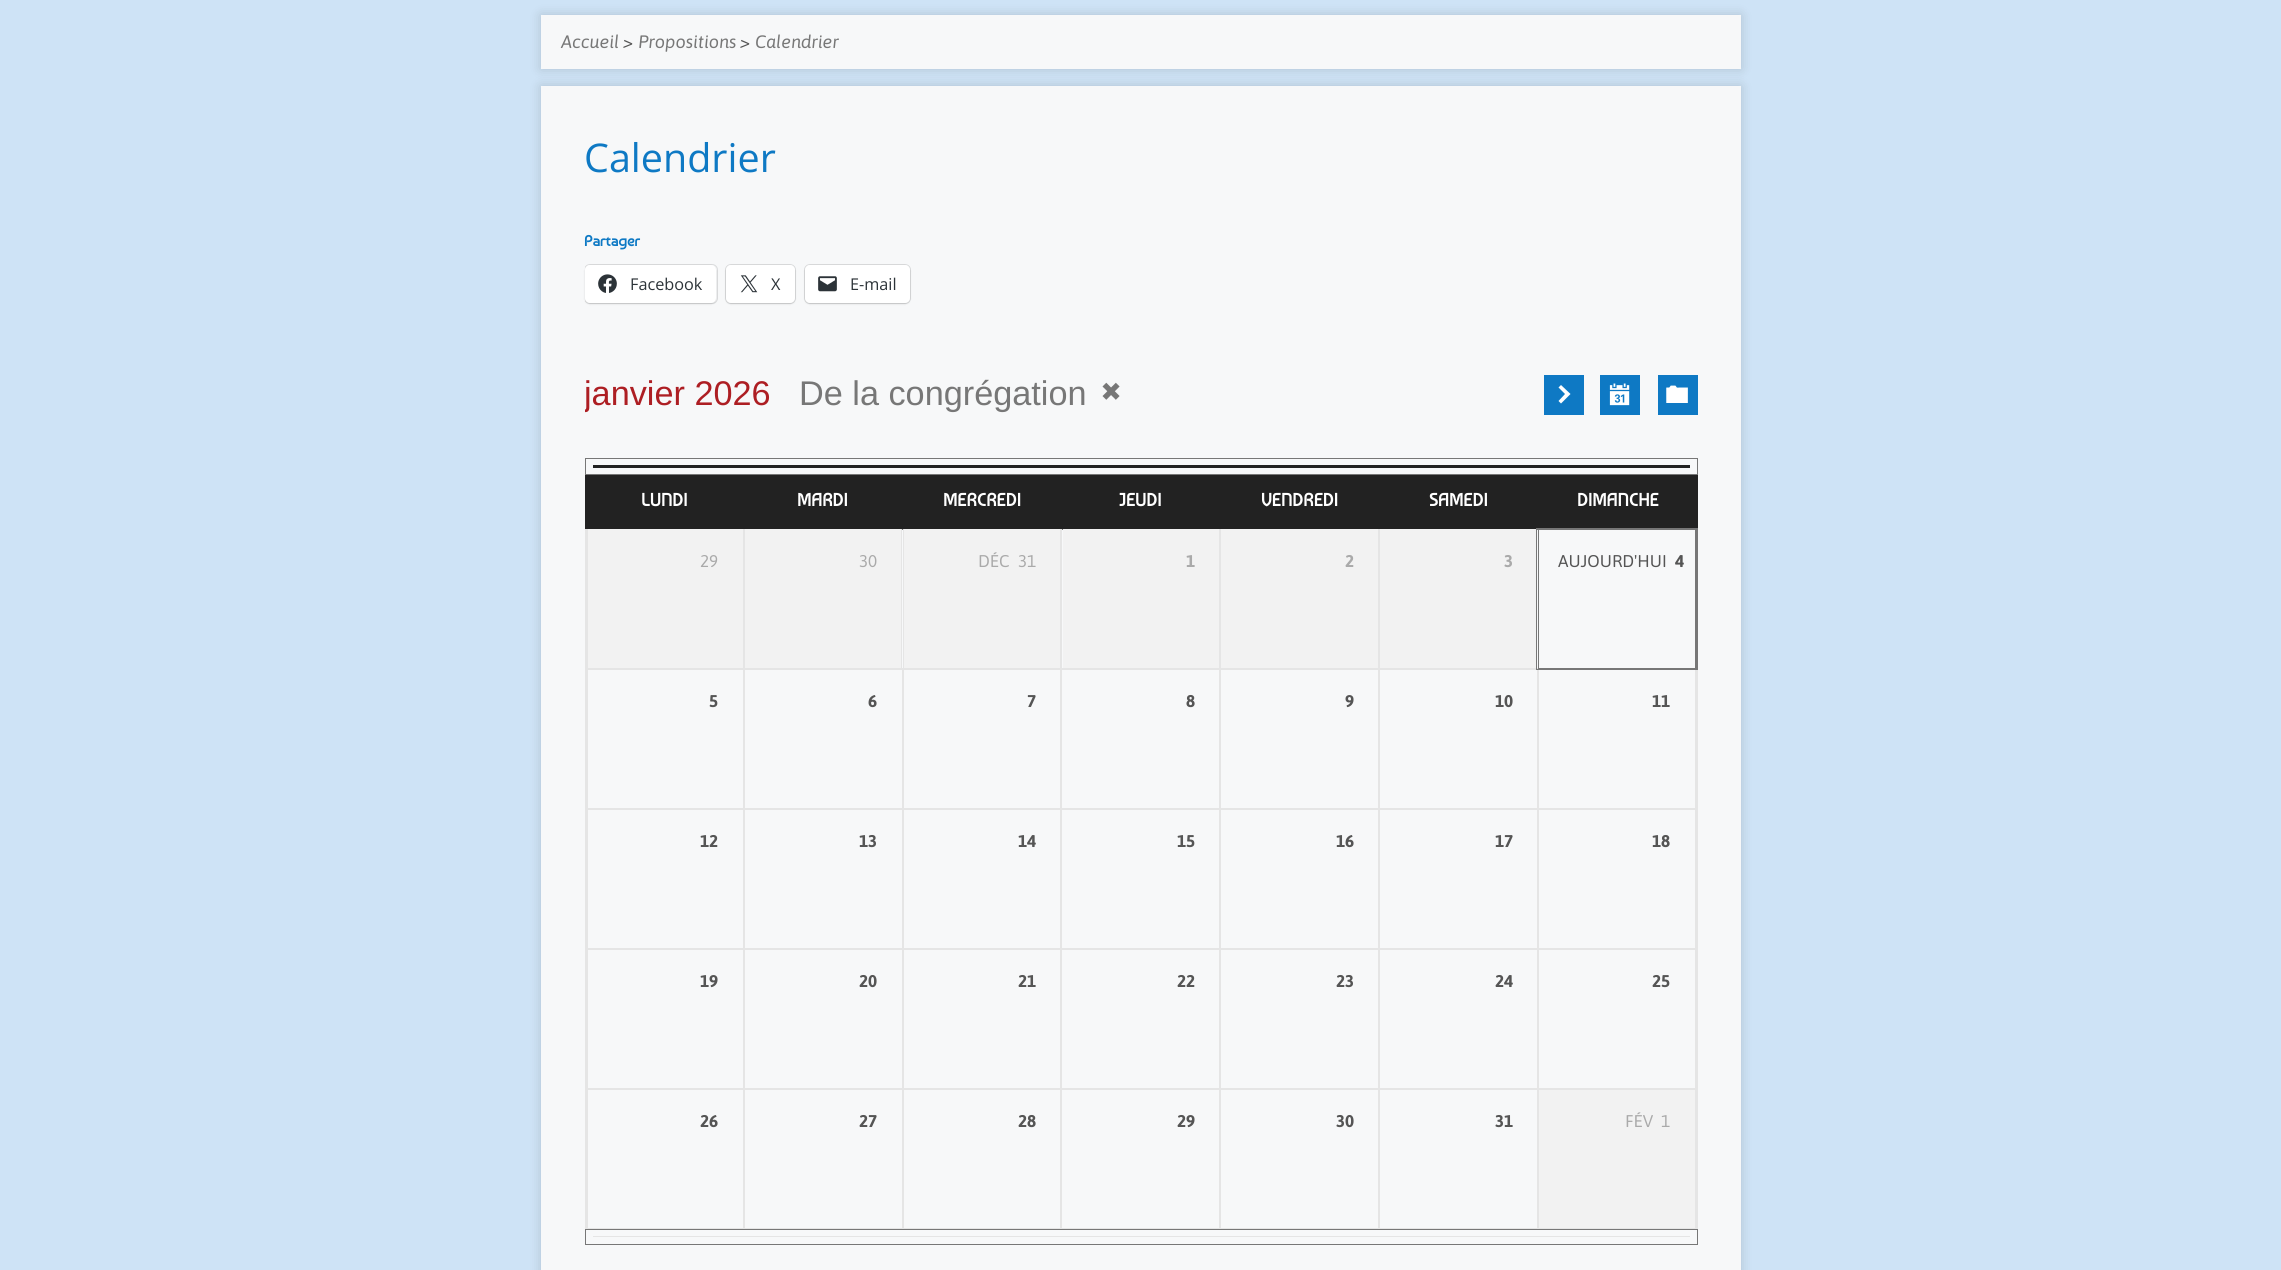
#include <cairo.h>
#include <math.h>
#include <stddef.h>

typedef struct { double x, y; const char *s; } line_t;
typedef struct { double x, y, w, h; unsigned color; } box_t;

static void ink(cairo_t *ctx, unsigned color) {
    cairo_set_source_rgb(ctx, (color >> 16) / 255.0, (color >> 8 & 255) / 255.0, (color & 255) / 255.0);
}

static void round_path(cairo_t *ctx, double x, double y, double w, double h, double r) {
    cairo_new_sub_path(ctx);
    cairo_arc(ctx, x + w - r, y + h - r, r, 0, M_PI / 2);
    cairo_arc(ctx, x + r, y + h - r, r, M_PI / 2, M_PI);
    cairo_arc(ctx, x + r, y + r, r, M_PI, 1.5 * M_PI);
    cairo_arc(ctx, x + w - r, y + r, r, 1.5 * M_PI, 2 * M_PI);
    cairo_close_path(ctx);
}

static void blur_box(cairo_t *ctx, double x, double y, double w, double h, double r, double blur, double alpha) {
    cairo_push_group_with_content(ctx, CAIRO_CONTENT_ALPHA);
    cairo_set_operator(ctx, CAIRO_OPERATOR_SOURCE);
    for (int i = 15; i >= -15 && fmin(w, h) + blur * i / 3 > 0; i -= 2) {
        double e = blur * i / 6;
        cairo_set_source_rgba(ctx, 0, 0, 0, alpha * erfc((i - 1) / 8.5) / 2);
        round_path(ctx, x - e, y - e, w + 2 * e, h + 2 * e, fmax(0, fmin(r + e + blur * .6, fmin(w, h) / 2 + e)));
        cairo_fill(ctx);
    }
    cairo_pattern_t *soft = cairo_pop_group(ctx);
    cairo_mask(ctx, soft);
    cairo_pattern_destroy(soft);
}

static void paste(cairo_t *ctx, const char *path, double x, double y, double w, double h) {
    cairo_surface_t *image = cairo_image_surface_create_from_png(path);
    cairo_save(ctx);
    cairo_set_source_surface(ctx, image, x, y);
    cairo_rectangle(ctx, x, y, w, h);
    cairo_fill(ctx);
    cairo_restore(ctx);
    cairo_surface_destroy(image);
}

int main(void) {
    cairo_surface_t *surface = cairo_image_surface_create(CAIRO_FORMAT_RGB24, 2281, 1270);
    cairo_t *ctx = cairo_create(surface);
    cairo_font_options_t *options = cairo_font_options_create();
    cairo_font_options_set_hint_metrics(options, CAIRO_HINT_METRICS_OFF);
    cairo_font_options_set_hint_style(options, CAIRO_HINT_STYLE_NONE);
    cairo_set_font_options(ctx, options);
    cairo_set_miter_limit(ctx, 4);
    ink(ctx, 0xCEE3F6);
    cairo_paint(ctx);
    cairo_save(ctx);
    cairo_set_fill_rule(ctx, CAIRO_FILL_RULE_EVEN_ODD);
    cairo_new_path(ctx);
    cairo_move_to(ctx, 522, 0);
    cairo_line_to(ctx, 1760, 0);
    cairo_line_to(ctx, 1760, 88);
    cairo_line_to(ctx, 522, 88);
    cairo_close_path(ctx);
    cairo_move_to(ctx, 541, 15);
    cairo_line_to(ctx, 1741, 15);
    cairo_line_to(ctx, 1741, 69);
    cairo_line_to(ctx, 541, 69);
    cairo_close_path(ctx);
    cairo_clip(ctx);
    ink(ctx, 0x000000);
    blur_box(ctx, 541, 15, 1200, 54, 0, 6, 0.15);
    cairo_restore(ctx);
    cairo_set_source_rgba(ctx, 0.98, 0.98, 0.98, 0.94);
    cairo_rectangle(ctx, 541, 15, 1200, 54);
    cairo_fill(ctx);
    cairo_select_font_face(ctx, "Asap", CAIRO_FONT_SLANT_ITALIC, CAIRO_FONT_WEIGHT_NORMAL);
    cairo_set_font_size(ctx, 18);
    ink(ctx, 0x777777);
    cairo_move_to(ctx, 561, 48);
    cairo_show_text(ctx, "Accueil");
    ink(ctx, 0x555555);
    cairo_move_to(ctx, 623, 48);
    cairo_show_text(ctx, ">");
    ink(ctx, 0x777777);
    cairo_move_to(ctx, 638, 48);
    cairo_show_text(ctx, "Propositions");
    ink(ctx, 0x555555);
    cairo_move_to(ctx, 740, 48);
    cairo_show_text(ctx, ">");
    ink(ctx, 0x777777);
    cairo_move_to(ctx, 755, 48);
    cairo_show_text(ctx, "Calendrier");
    cairo_save(ctx);
    cairo_set_fill_rule(ctx, CAIRO_FILL_RULE_EVEN_ODD);
    cairo_new_path(ctx);
    cairo_move_to(ctx, 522, 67);
    cairo_line_to(ctx, 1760, 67);
    cairo_line_to(ctx, 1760, 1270);
    cairo_line_to(ctx, 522, 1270);
    cairo_close_path(ctx);
    cairo_move_to(ctx, 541, 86);
    cairo_line_to(ctx, 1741, 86);
    cairo_line_to(ctx, 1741, 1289);
    cairo_line_to(ctx, 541, 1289);
    cairo_close_path(ctx);
    cairo_clip(ctx);
    ink(ctx, 0x000000);
    blur_box(ctx, 541, 86, 1200, 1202, 0, 6, 0.15);
    cairo_restore(ctx);
    cairo_set_source_rgba(ctx, 0.98, 0.98, 0.98, 0.94);
    cairo_rectangle(ctx, 541, 86, 1200, 1184);
    cairo_fill(ctx);
    cairo_select_font_face(ctx, "Open Sans", CAIRO_FONT_SLANT_NORMAL, CAIRO_FONT_WEIGHT_NORMAL);
    cairo_set_font_size(ctx, 39.5);
    ink(ctx, 0x0E79C4);
    cairo_move_to(ctx, 584, 172);
    cairo_show_text(ctx, "Calendrier");
    cairo_select_font_face(ctx, "Baumans", CAIRO_FONT_SLANT_NORMAL, CAIRO_FONT_WEIGHT_BOLD);
    cairo_set_font_size(ctx, 15);
    cairo_move_to(ctx, 584, 246);
    cairo_show_text(ctx, "Partager");
    cairo_save(ctx);
    cairo_rectangle(ctx, 585, 130, 1113, 1115);
    cairo_clip(ctx);
    round_path(ctx, 584.5, 264.5, 133, 39, 5.5);
    ink(ctx, 0xDADBDC);
    cairo_set_line_width(ctx, 1);
    cairo_stroke(ctx);
    cairo_restore(ctx);
    ink(ctx, 0x000000);
    blur_box(ctx, 585, 266, 131, 38, 5, 1, 0.12);
    ink(ctx, 0xFFFFFF);
    round_path(ctx, 585, 265, 131, 38, 5);
    cairo_fill(ctx);
    paste(ctx, "media/1.png", 598, 274, 19, 19);
    cairo_select_font_face(ctx, "Open Sans", CAIRO_FONT_SLANT_NORMAL, CAIRO_FONT_WEIGHT_NORMAL);
    cairo_set_font_size(ctx, 16.25);
    ink(ctx, 0x2C3338);
    cairo_move_to(ctx, 630, 290);
    cairo_show_text(ctx, "Facebook");
    round_path(ctx, 725.5, 264.5, 70, 39, 5.5);
    ink(ctx, 0xDADBDC);
    cairo_set_line_width(ctx, 1);
    cairo_stroke(ctx);
    ink(ctx, 0x000000);
    blur_box(ctx, 726, 266, 69, 38, 5, 1, 0.12);
    ink(ctx, 0xFFFFFF);
    round_path(ctx, 726, 265, 69, 38, 5);
    cairo_fill(ctx);
    paste(ctx, "media/2.png", 740, 275, 18, 18);
    ink(ctx, 0x2C3338);
    cairo_move_to(ctx, 771, 290);
    cairo_show_text(ctx, "X");
    round_path(ctx, 804.5, 264.5, 106, 39, 5.5);
    ink(ctx, 0xDADBDC);
    cairo_stroke(ctx);
    ink(ctx, 0x000000);
    blur_box(ctx, 805, 266, 105, 38, 5, 1, 0.12);
    ink(ctx, 0xFFFFFF);
    round_path(ctx, 805, 265, 105, 38, 5);
    cairo_fill(ctx);
    paste(ctx, "media/3.png", 818, 276, 19, 16);
    ink(ctx, 0x2C3338);
    cairo_move_to(ctx, 850, 290);
    cairo_show_text(ctx, "E-mail");
    cairo_save(ctx);
    cairo_rectangle(ctx, 585, 130, 1113, 1115);
    cairo_clip(ctx);
    cairo_select_font_face(ctx, "Liberation Sans", CAIRO_FONT_SLANT_NORMAL, CAIRO_FONT_WEIGHT_NORMAL);
    cairo_set_font_size(ctx, 34.25);
    ink(ctx, 0xAD1E23);
    cairo_move_to(ctx, 584, 405);
    cairo_show_text(ctx, "janvier 2026");
    cairo_restore(ctx);
    cairo_select_font_face(ctx, "Liberation Sans", CAIRO_FONT_SLANT_NORMAL, CAIRO_FONT_WEIGHT_NORMAL);
    cairo_set_font_size(ctx, 34.25);
    ink(ctx, 0x777777);
    cairo_move_to(ctx, 799, 405);
    cairo_show_text(ctx, "De la congrégation");
    paste(ctx, "media/4.png", 1102, 382, 18, 18);
    ink(ctx, 0x0E79C4);
    cairo_rectangle(ctx, 1544, 375, 40, 40);
    cairo_fill(ctx);
    ink(ctx, 0xFFFFFF);
    cairo_new_path(ctx);
    cairo_move_to(ctx, 1570.5, 394);
    cairo_line_to(ctx, 1561, 385);
    cairo_line_to(ctx, 1558.5, 387.5);
    cairo_line_to(ctx, 1565, 394);
    cairo_line_to(ctx, 1558.5, 401);
    cairo_line_to(ctx, 1561, 403.5);
    cairo_close_path(ctx);
    cairo_fill(ctx);
    ink(ctx, 0x0E79C4);
    cairo_rectangle(ctx, 1600, 375, 40, 40);
    cairo_fill(ctx);
    paste(ctx, "media/5.png", 1609, 383, 21, 23);
    cairo_rectangle(ctx, 1658, 375, 40, 40);
    cairo_fill(ctx);
    paste(ctx, "media/6.png", 1666, 385, 22, 18);
    cairo_rectangle(ctx, 585.5, 458.5, 1112, 16);
    ink(ctx, 0x777777);
    cairo_stroke(ctx);
    ink(ctx, 0x222222);
    cairo_rectangle(ctx, 593, 465, 1097, 3);
    cairo_fill(ctx);
    cairo_rectangle(ctx, 585, 475, 953, 54);
    cairo_fill(ctx);
    cairo_select_font_face(ctx, "Baumans", CAIRO_FONT_SLANT_NORMAL, CAIRO_FONT_WEIGHT_BOLD);
    cairo_set_font_size(ctx, 18);
    ink(ctx, 0xFFFFFF);
    {
        static const line_t items[] = {
            {641, 506, "LUNDI"},
            {797, 506, "MARDI"},
            {943, 506, "MERCREDI"},
            {1119, 506, "JEUDI"},
            {1261, 506, "VENDREDI"},
            {1429, 506, "SAMEDI"},
        };
        for (size_t i = 0; i < sizeof items / sizeof *items; i++) {
            cairo_move_to(ctx, items[i].x, items[i].y);
            cairo_show_text(ctx, items[i].s);
        }
    }
    ink(ctx, 0x222222);
    cairo_rectangle(ctx, 1538, 475, 160, 53);
    cairo_fill(ctx);
    ink(ctx, 0xFFFFFF);
    cairo_move_to(ctx, 1577, 506);
    cairo_show_text(ctx, "DIMANCHE");
    cairo_rectangle(ctx, 585.5, 529.5, 1112, 139);
    ink(ctx, 0x777777);
    cairo_stroke(ctx);
    {
        static const box_t items[] = {
            {588, 529, 155, 139, 0xF2F2F2},
            {743, 529, 1, 140, 0xE5E5E5},
            {585, 668, 159, 2, 0xE5E5E5},
            {585, 529, 3, 140, 0xE5E5E5},
        };
        for (size_t i = 0; i < sizeof items / sizeof *items; i++) {
            ink(ctx, items[i].color);
            cairo_rectangle(ctx, items[i].x, items[i].y, items[i].w, items[i].h);
            cairo_fill(ctx);
        }
    }
    cairo_select_font_face(ctx, "Asap", CAIRO_FONT_SLANT_NORMAL, CAIRO_FONT_WEIGHT_NORMAL);
    cairo_set_font_size(ctx, 17);
    ink(ctx, 0xAAAAAA);
    cairo_move_to(ctx, 700, 567);
    cairo_show_text(ctx, "29");
    {
        static const box_t items[] = {
            {745, 529, 156, 139, 0xF2F2F2},
            {901, 529, 1, 140, 0xE5E5E5},
            {744, 668, 159, 1, 0xE5E5E5},
            {744, 529, 1, 140, 0xE5E5E5},
        };
        for (size_t i = 0; i < sizeof items / sizeof *items; i++) {
            ink(ctx, items[i].color);
            cairo_rectangle(ctx, items[i].x, items[i].y, items[i].w, items[i].h);
            cairo_fill(ctx);
        }
    }
    ink(ctx, 0xAAAAAA);
    cairo_move_to(ctx, 859, 567);
    cairo_show_text(ctx, "30");
    {
        static const box_t items[] = {
            {904, 529, 156, 139, 0xF2F2F2},
            {1060, 529, 1, 140, 0xE5E5E5},
            {903, 668, 158, 1, 0xE5E5E5},
            {903, 529, 1, 140, 0xE5E5E5},
        };
        for (size_t i = 0; i < sizeof items / sizeof *items; i++) {
            ink(ctx, items[i].color);
            cairo_rectangle(ctx, items[i].x, items[i].y, items[i].w, items[i].h);
            cairo_fill(ctx);
        }
    }
    ink(ctx, 0xAAAAAA);
    cairo_move_to(ctx, 978, 567);
    cairo_show_text(ctx, "DÉC");
    cairo_move_to(ctx, 1018, 567);
    cairo_show_text(ctx, "31");
    {
        static const box_t items[] = {
            {1063, 529, 156, 139, 0xF2F2F2},
            {1219, 529, 1, 140, 0xE5E5E5},
            {1061, 668, 159, 1, 0xE5E5E5},
            {1061, 529, 1, 140, 0xE5E5E5},
        };
        for (size_t i = 0; i < sizeof items / sizeof *items; i++) {
            ink(ctx, items[i].color);
            cairo_rectangle(ctx, items[i].x, items[i].y, items[i].w, items[i].h);
            cairo_fill(ctx);
        }
    }
    cairo_select_font_face(ctx, "Asap", CAIRO_FONT_SLANT_NORMAL, CAIRO_FONT_WEIGHT_BOLD);
    ink(ctx, 0xAAAAAA);
    cairo_move_to(ctx, 1186, 567);
    cairo_show_text(ctx, "1");
    {
        static const box_t items[] = {
            {1221, 529, 157, 139, 0xF2F2F2},
            {1378, 529, 1, 140, 0xE5E5E5},
            {1220, 668, 318, 1, 0xE5E5E5},
            {1220, 529, 1, 140, 0xE5E5E5},
        };
        for (size_t i = 0; i < sizeof items / sizeof *items; i++) {
            ink(ctx, items[i].color);
            cairo_rectangle(ctx, items[i].x, items[i].y, items[i].w, items[i].h);
            cairo_fill(ctx);
        }
    }
    ink(ctx, 0xAAAAAA);
    cairo_move_to(ctx, 1345, 567);
    cairo_show_text(ctx, "2");
    ink(ctx, 0xF2F2F2);
    cairo_rectangle(ctx, 1380, 529, 156, 139);
    cairo_fill(ctx);
    ink(ctx, 0xE5E5E5);
    cairo_rectangle(ctx, 1379, 529, 1, 140);
    cairo_fill(ctx);
    ink(ctx, 0xAAAAAA);
    cairo_move_to(ctx, 1504, 567);
    cairo_show_text(ctx, "3");
    ink(ctx, 0x777777);
    cairo_rectangle(ctx, 1695, 529, 2, 140);
    cairo_fill(ctx);
    cairo_rectangle(ctx, 1538, 529, 1, 140);
    cairo_fill(ctx);
    cairo_rectangle(ctx, 1379.5, 669.5, 158, 139);
    ink(ctx, 0xE5E5E5);
    cairo_stroke(ctx);
    {
        static const box_t items[] = {
            {1695, 669, 3, 140, 0xE5E5E5},
            {1538, 808, 160, 2, 0xE5E5E5},
            {1538, 669, 1, 140, 0xE5E5E5},
        };
        for (size_t i = 0; i < sizeof items / sizeof *items; i++) {
            ink(ctx, items[i].color);
            cairo_rectangle(ctx, items[i].x, items[i].y, items[i].w, items[i].h);
            cairo_fill(ctx);
        }
    }
    cairo_save(ctx);
    cairo_rectangle(ctx, 585, 458, 1113, 787);
    cairo_clip(ctx);
    cairo_rectangle(ctx, 1536.5, 528.5, 162, 141);
    ink(ctx, 0x777777);
    cairo_stroke(ctx);
    cairo_restore(ctx);
    cairo_select_font_face(ctx, "Asap", CAIRO_FONT_SLANT_NORMAL, CAIRO_FONT_WEIGHT_NORMAL);
    ink(ctx, 0x555555);
    cairo_move_to(ctx, 1558, 567);
    cairo_show_text(ctx, "AUJOURD'HUI");
    cairo_select_font_face(ctx, "Asap", CAIRO_FONT_SLANT_NORMAL, CAIRO_FONT_WEIGHT_BOLD);
    cairo_move_to(ctx, 1675, 567);
    cairo_show_text(ctx, "4");
    {
        static const box_t items[] = {
            {743, 669, 1, 140, 0xE5E5E5},
            {585, 808, 159, 2, 0xE5E5E5},
            {585, 669, 3, 140, 0xE5E5E5},
        };
        for (size_t i = 0; i < sizeof items / sizeof *items; i++) {
            ink(ctx, items[i].color);
            cairo_rectangle(ctx, items[i].x, items[i].y, items[i].w, items[i].h);
            cairo_fill(ctx);
        }
    }
    ink(ctx, 0x555555);
    cairo_move_to(ctx, 709, 707);
    cairo_show_text(ctx, "5");
    cairo_rectangle(ctx, 744.5, 669.5, 158, 139);
    ink(ctx, 0xE5E5E5);
    cairo_stroke(ctx);
    ink(ctx, 0x555555);
    cairo_move_to(ctx, 868, 707);
    cairo_show_text(ctx, "6");
    cairo_rectangle(ctx, 903.5, 669.5, 157, 139);
    ink(ctx, 0xE5E5E5);
    cairo_stroke(ctx);
    ink(ctx, 0x555555);
    cairo_move_to(ctx, 1027, 707);
    cairo_show_text(ctx, "7");
    cairo_rectangle(ctx, 1061.5, 669.5, 158, 139);
    ink(ctx, 0xE5E5E5);
    cairo_stroke(ctx);
    ink(ctx, 0x555555);
    cairo_move_to(ctx, 1186, 707);
    cairo_show_text(ctx, "8");
    cairo_rectangle(ctx, 1220.5, 669.5, 158, 139);
    ink(ctx, 0xE5E5E5);
    cairo_stroke(ctx);
    ink(ctx, 0x555555);
    {
        static const line_t items[] = {
            {1345, 707, "9"},
            {1495, 707, "10"},
            {1652, 707, "11"},
        };
        for (size_t i = 0; i < sizeof items / sizeof *items; i++) {
            cairo_move_to(ctx, items[i].x, items[i].y);
            cairo_show_text(ctx, items[i].s);
        }
    }
    {
        static const box_t items[] = {
            {743, 809, 1, 140, 0xE5E5E5},
            {585, 948, 159, 2, 0xE5E5E5},
            {585, 809, 3, 140, 0xE5E5E5},
        };
        for (size_t i = 0; i < sizeof items / sizeof *items; i++) {
            ink(ctx, items[i].color);
            cairo_rectangle(ctx, items[i].x, items[i].y, items[i].w, items[i].h);
            cairo_fill(ctx);
        }
    }
    ink(ctx, 0x555555);
    cairo_move_to(ctx, 700, 847);
    cairo_show_text(ctx, "12");
    cairo_rectangle(ctx, 744.5, 809.5, 158, 139);
    ink(ctx, 0xE5E5E5);
    cairo_stroke(ctx);
    ink(ctx, 0x555555);
    cairo_move_to(ctx, 859, 847);
    cairo_show_text(ctx, "13");
    cairo_rectangle(ctx, 903.5, 809.5, 157, 139);
    ink(ctx, 0xE5E5E5);
    cairo_stroke(ctx);
    ink(ctx, 0x555555);
    cairo_move_to(ctx, 1018, 847);
    cairo_show_text(ctx, "14");
    cairo_rectangle(ctx, 1061.5, 809.5, 158, 139);
    ink(ctx, 0xE5E5E5);
    cairo_stroke(ctx);
    ink(ctx, 0x555555);
    cairo_move_to(ctx, 1177, 847);
    cairo_show_text(ctx, "15");
    cairo_rectangle(ctx, 1220.5, 809.5, 158, 139);
    ink(ctx, 0xE5E5E5);
    cairo_stroke(ctx);
    ink(ctx, 0x555555);
    cairo_move_to(ctx, 1336, 847);
    cairo_show_text(ctx, "16");
    cairo_rectangle(ctx, 1379.5, 809.5, 158, 139);
    ink(ctx, 0xE5E5E5);
    cairo_stroke(ctx);
    ink(ctx, 0x555555);
    cairo_move_to(ctx, 1495, 847);
    cairo_show_text(ctx, "17");
    {
        static const box_t items[] = {
            {1695, 809, 3, 140, 0xE5E5E5},
            {1538, 948, 160, 2, 0xE5E5E5},
            {1538, 809, 1, 140, 0xE5E5E5},
        };
        for (size_t i = 0; i < sizeof items / sizeof *items; i++) {
            ink(ctx, items[i].color);
            cairo_rectangle(ctx, items[i].x, items[i].y, items[i].w, items[i].h);
            cairo_fill(ctx);
        }
    }
    ink(ctx, 0x555555);
    cairo_move_to(ctx, 1652, 847);
    cairo_show_text(ctx, "18");
    {
        static const box_t items[] = {
            {743, 949, 1, 140, 0xE5E5E5},
            {585, 1088, 159, 2, 0xE5E5E5},
            {585, 949, 3, 140, 0xE5E5E5},
        };
        for (size_t i = 0; i < sizeof items / sizeof *items; i++) {
            ink(ctx, items[i].color);
            cairo_rectangle(ctx, items[i].x, items[i].y, items[i].w, items[i].h);
            cairo_fill(ctx);
        }
    }
    ink(ctx, 0x555555);
    cairo_move_to(ctx, 700, 987);
    cairo_show_text(ctx, "19");
    cairo_rectangle(ctx, 744.5, 949.5, 158, 139);
    ink(ctx, 0xE5E5E5);
    cairo_stroke(ctx);
    ink(ctx, 0x555555);
    cairo_move_to(ctx, 859, 987);
    cairo_show_text(ctx, "20");
    cairo_rectangle(ctx, 903.5, 949.5, 157, 139);
    ink(ctx, 0xE5E5E5);
    cairo_stroke(ctx);
    ink(ctx, 0x555555);
    cairo_move_to(ctx, 1018, 987);
    cairo_show_text(ctx, "21");
    cairo_rectangle(ctx, 1061.5, 949.5, 158, 139);
    ink(ctx, 0xE5E5E5);
    cairo_stroke(ctx);
    ink(ctx, 0x555555);
    cairo_move_to(ctx, 1177, 987);
    cairo_show_text(ctx, "22");
    cairo_rectangle(ctx, 1220.5, 949.5, 158, 139);
    ink(ctx, 0xE5E5E5);
    cairo_stroke(ctx);
    ink(ctx, 0x555555);
    cairo_move_to(ctx, 1336, 987);
    cairo_show_text(ctx, "23");
    cairo_rectangle(ctx, 1379.5, 949.5, 158, 139);
    ink(ctx, 0xE5E5E5);
    cairo_stroke(ctx);
    ink(ctx, 0x555555);
    cairo_move_to(ctx, 1495, 987);
    cairo_show_text(ctx, "24");
    {
        static const box_t items[] = {
            {1695, 949, 3, 140, 0xE5E5E5},
            {1538, 1088, 160, 2, 0xE5E5E5},
            {1538, 949, 1, 140, 0xE5E5E5},
        };
        for (size_t i = 0; i < sizeof items / sizeof *items; i++) {
            ink(ctx, items[i].color);
            cairo_rectangle(ctx, items[i].x, items[i].y, items[i].w, items[i].h);
            cairo_fill(ctx);
        }
    }
    ink(ctx, 0x555555);
    cairo_move_to(ctx, 1652, 987);
    cairo_show_text(ctx, "25");
    {
        static const box_t items[] = {
            {743, 1089, 1, 140, 0xE5E5E5},
            {585, 1228, 159, 1, 0xE5E5E5},
            {585, 1089, 3, 140, 0xE5E5E5},
        };
        for (size_t i = 0; i < sizeof items / sizeof *items; i++) {
            ink(ctx, items[i].color);
            cairo_rectangle(ctx, items[i].x, items[i].y, items[i].w, items[i].h);
            cairo_fill(ctx);
        }
    }
    ink(ctx, 0x555555);
    cairo_move_to(ctx, 700, 1127);
    cairo_show_text(ctx, "26");
    cairo_rectangle(ctx, 744.5, 1089.5, 158, 139);
    ink(ctx, 0xE5E5E5);
    cairo_stroke(ctx);
    ink(ctx, 0x555555);
    cairo_move_to(ctx, 859, 1127);
    cairo_show_text(ctx, "27");
    cairo_rectangle(ctx, 903.5, 1089.5, 157, 139);
    ink(ctx, 0xE5E5E5);
    cairo_stroke(ctx);
    ink(ctx, 0x555555);
    cairo_move_to(ctx, 1018, 1127);
    cairo_show_text(ctx, "28");
    cairo_rectangle(ctx, 1061.5, 1089.5, 158, 139);
    ink(ctx, 0xE5E5E5);
    cairo_stroke(ctx);
    ink(ctx, 0x555555);
    cairo_move_to(ctx, 1177, 1127);
    cairo_show_text(ctx, "29");
    cairo_rectangle(ctx, 1220.5, 1089.5, 158, 139);
    ink(ctx, 0xE5E5E5);
    cairo_stroke(ctx);
    ink(ctx, 0x555555);
    cairo_move_to(ctx, 1336, 1127);
    cairo_show_text(ctx, "30");
    cairo_rectangle(ctx, 1379.5, 1089.5, 158, 139);
    ink(ctx, 0xE5E5E5);
    cairo_stroke(ctx);
    ink(ctx, 0x555555);
    cairo_move_to(ctx, 1495, 1127);
    cairo_show_text(ctx, "31");
    {
        static const box_t items[] = {
            {1539, 1090, 156, 138, 0xF2F2F2},
            {1695, 1089, 3, 140, 0xE5E5E5},
            {1538, 1228, 160, 1, 0xE5E5E5},
            {1538, 1089, 1, 140, 0xE5E5E5},
        };
        for (size_t i = 0; i < sizeof items / sizeof *items; i++) {
            ink(ctx, items[i].color);
            cairo_rectangle(ctx, items[i].x, items[i].y, items[i].w, items[i].h);
            cairo_fill(ctx);
        }
    }
    cairo_select_font_face(ctx, "Asap", CAIRO_FONT_SLANT_NORMAL, CAIRO_FONT_WEIGHT_NORMAL);
    ink(ctx, 0xAAAAAA);
    cairo_move_to(ctx, 1625, 1127);
    cairo_show_text(ctx, "FÉV");
    cairo_move_to(ctx, 1661, 1127);
    cairo_show_text(ctx, "1");
    cairo_rectangle(ctx, 585.5, 1229.5, 1112, 15);
    ink(ctx, 0x777777);
    cairo_stroke(ctx);
    ink(ctx, 0xE5E5E5);
    cairo_rectangle(ctx, 593, 1236, 1097, 1);
    cairo_fill(ctx);
    cairo_surface_write_to_png(surface, "image.png");
    cairo_font_options_destroy(options);
    cairo_destroy(ctx);
    cairo_surface_destroy(surface);
    return 0;
}
